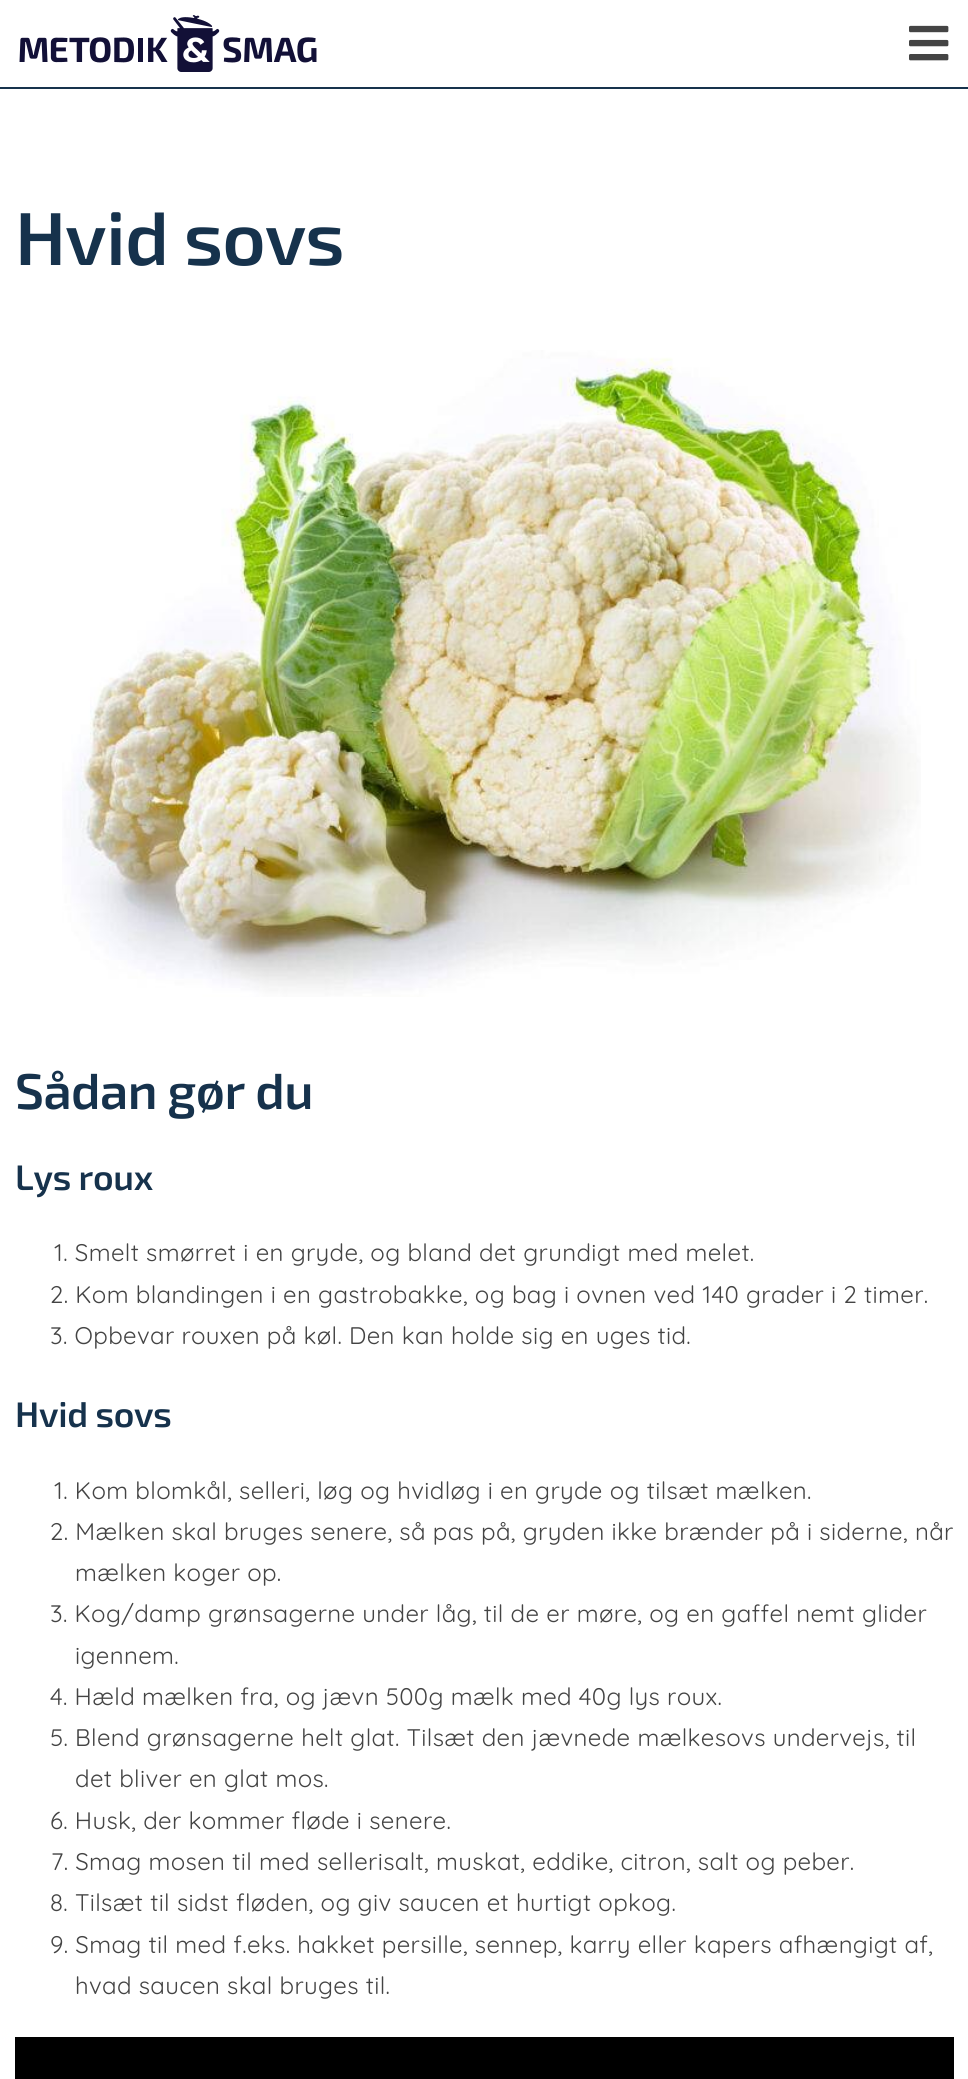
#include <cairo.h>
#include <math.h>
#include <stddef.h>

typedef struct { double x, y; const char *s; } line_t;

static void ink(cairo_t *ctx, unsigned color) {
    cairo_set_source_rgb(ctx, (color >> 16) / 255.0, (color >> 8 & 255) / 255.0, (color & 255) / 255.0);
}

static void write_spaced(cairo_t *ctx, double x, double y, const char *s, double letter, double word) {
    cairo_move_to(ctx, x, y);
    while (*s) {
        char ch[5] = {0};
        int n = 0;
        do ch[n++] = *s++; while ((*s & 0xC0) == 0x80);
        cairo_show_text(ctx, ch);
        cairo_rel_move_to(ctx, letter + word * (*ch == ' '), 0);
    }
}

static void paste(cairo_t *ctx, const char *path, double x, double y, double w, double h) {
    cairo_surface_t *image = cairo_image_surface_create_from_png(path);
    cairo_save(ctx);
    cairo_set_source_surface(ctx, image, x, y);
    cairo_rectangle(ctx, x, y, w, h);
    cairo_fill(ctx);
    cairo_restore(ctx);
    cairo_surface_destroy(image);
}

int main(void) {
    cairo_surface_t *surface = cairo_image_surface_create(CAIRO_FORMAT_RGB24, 968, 2079);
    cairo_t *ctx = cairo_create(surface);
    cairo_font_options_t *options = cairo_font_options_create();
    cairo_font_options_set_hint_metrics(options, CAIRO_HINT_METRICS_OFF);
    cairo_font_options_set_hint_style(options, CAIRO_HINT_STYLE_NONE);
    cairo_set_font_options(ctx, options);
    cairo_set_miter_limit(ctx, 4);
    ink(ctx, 0xFFFFFF);
    cairo_paint(ctx);
    ink(ctx, 0x16324C);
    cairo_rectangle(ctx, 0, 87, 968, 2);
    cairo_fill(ctx);
    paste(ctx, "media/1.png", 19, 15, 298, 57);
    paste(ctx, "media/2.png", 909, 25, 40, 36);
    cairo_select_font_face(ctx, "Exo 2 SemiBold", CAIRO_FONT_SLANT_NORMAL, CAIRO_FONT_WEIGHT_NORMAL);
    cairo_set_font_size(ctx, 75);
    write_spaced(ctx, 15, 265, "Hvid sovs", -0.75, 0);
    paste(ctx, "media/3.png", 62, 350, 859, 647);
    cairo_set_font_size(ctx, 50.25);
    write_spaced(ctx, 15, 1109, "Sådan gør du", -0.5, 0);
    cairo_set_font_size(ctx, 35.5);
    write_spaced(ctx, 15, 1190, "Lys roux", -0.25, 0);
    cairo_select_font_face(ctx, "Quicksand", CAIRO_FONT_SLANT_NORMAL, CAIRO_FONT_WEIGHT_NORMAL);
    cairo_set_font_size(ctx, 24);
    ink(ctx, 0x444444);
    {
        static const line_t items[] = {
            {54, 1261, "1. Smelt smørret i en gryde, og bland det grundigt med melet."},
            {50, 1303, "2. Kom blandingen i en gastrobakke, og bag i ovnen ved 140 grader i 2 timer."},
            {50, 1344, "3. Opbevar rouxen på køl. Den kan holde sig en uges tid."},
        };
        for (size_t i = 0; i < sizeof items / sizeof *items; i++) {
            write_spaced(ctx, items[i].x, items[i].y, items[i].s, 0.35, 0);
        }
    }
    cairo_select_font_face(ctx, "Exo 2 SemiBold", CAIRO_FONT_SLANT_NORMAL, CAIRO_FONT_WEIGHT_NORMAL);
    cairo_set_font_size(ctx, 35.5);
    ink(ctx, 0x16324C);
    write_spaced(ctx, 15, 1427, "Hvid sovs", -0.25, 0);
    cairo_select_font_face(ctx, "Quicksand", CAIRO_FONT_SLANT_NORMAL, CAIRO_FONT_WEIGHT_NORMAL);
    cairo_set_font_size(ctx, 24);
    ink(ctx, 0x444444);
    {
        static const line_t items[] = {
            {54, 1499, "1. Kom blomkål, selleri, løg og hvidløg i en gryde og tilsæt mælken."},
            {50, 1540, "2. Mælken skal bruges senere, så pas på, gryden ikke brænder på i siderne, når"},
            {75, 1581, "mælken koger op."},
            {50, 1622, "3. Kog/damp grønsagerne under låg, til de er møre, og en gaffel nemt glider"},
            {75, 1664, "igennem."},
            {50, 1705, "4. Hæld mælken fra, og jævn 500g mælk med 40g lys roux."},
            {50, 1746, "5. Blend grønsagerne helt glat. Tilsæt den jævnede mælkesovs undervejs, til"},
            {75, 1787, "det bliver en glat mos."},
            {50, 1829, "6. Husk, der kommer fløde i senere."},
            {51, 1870, "7. Smag mosen til med sellerisalt, muskat, eddike, citron, salt og peber."},
            {50, 1911, "8. Tilsæt til sidst fløden, og giv saucen et hurtigt opkog."},
            {50, 1953, "9. Smag til med f.eks. hakket persille, sennep, karry eller kapers afhængigt af,"},
            {75, 1994, "hvad saucen skal bruges til."},
        };
        for (size_t i = 0; i < sizeof items / sizeof *items; i++) {
            write_spaced(ctx, items[i].x, items[i].y, items[i].s, 0.35, 0);
        }
    }
    ink(ctx, 0x000000);
    cairo_rectangle(ctx, 15, 2037, 939, 42);
    cairo_fill(ctx);
    cairo_surface_write_to_png(surface, "image.png");
    cairo_font_options_destroy(options);
    cairo_destroy(ctx);
    cairo_surface_destroy(surface);
    return 0;
}
